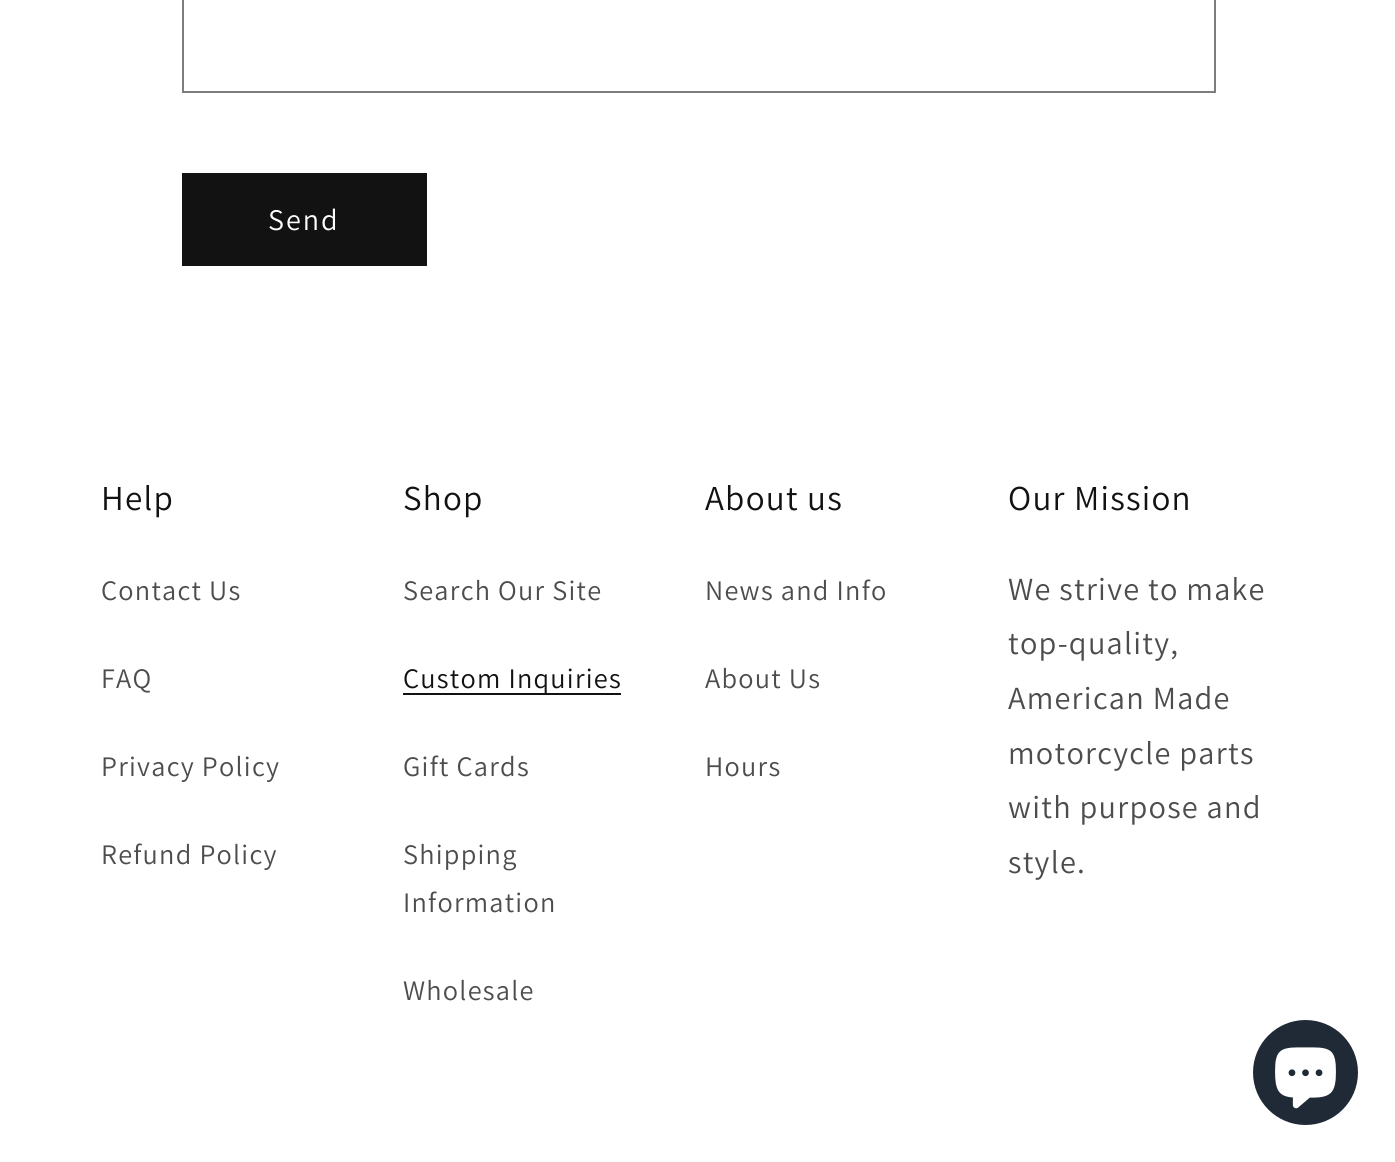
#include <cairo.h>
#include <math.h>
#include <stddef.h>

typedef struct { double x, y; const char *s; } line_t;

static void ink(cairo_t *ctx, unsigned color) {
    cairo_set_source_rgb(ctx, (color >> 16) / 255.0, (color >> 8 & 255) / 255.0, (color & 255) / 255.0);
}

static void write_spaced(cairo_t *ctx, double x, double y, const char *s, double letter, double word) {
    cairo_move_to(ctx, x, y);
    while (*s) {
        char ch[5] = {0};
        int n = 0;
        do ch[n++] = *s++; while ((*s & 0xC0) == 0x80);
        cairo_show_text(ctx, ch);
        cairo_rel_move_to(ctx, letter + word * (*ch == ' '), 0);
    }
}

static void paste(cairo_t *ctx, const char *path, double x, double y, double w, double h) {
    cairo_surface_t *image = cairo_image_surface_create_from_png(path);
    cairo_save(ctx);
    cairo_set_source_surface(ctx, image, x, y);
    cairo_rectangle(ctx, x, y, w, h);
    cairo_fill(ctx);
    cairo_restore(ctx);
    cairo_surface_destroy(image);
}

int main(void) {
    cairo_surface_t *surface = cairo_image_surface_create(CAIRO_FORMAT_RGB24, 1395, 1162);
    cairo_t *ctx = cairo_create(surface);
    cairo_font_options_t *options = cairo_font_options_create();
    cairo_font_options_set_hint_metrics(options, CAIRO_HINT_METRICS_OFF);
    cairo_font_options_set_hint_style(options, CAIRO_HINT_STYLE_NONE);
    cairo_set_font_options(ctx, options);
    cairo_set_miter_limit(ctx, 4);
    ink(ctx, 0xFFFFFF);
    cairo_paint(ctx);
    cairo_rectangle(ctx, 183, -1, 1032, 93);
    ink(ctx, 0x7D7D7D);
    cairo_stroke(ctx);
    ink(ctx, 0x121212);
    cairo_rectangle(ctx, 182, 173, 245, 93);
    cairo_fill(ctx);
    cairo_select_font_face(ctx, "Assistant", CAIRO_FONT_SLANT_NORMAL, CAIRO_FONT_WEIGHT_NORMAL);
    cairo_set_font_size(ctx, 30);
    ink(ctx, 0xFFFFFF);
    write_spaced(ctx, 268, 230, "Send", 2, 0);
    cairo_set_font_size(ctx, 35);
    ink(ctx, 0x121212);
    write_spaced(ctx, 101, 510, "Help", 1.25, 0);
    cairo_set_font_size(ctx, 28.25);
    ink(ctx, 0x4D4D4D);
    {
        static const line_t items[] = {
            {101, 600, "Contact Us"},
            {101, 688, "FAQ"},
            {101, 776, "Privacy Policy"},
            {101, 864, "Refund Policy"},
        };
        for (size_t i = 0; i < sizeof items / sizeof *items; i++) {
            write_spaced(ctx, items[i].x, items[i].y, items[i].s, 1.25, 0);
        }
    }
    cairo_set_font_size(ctx, 35);
    ink(ctx, 0x121212);
    write_spaced(ctx, 403, 510, "Shop", 1.25, 0);
    cairo_set_font_size(ctx, 28.25);
    ink(ctx, 0x4D4D4D);
    write_spaced(ctx, 403, 600, "Search Our Site", 1.25, 0);
    ink(ctx, 0x121212);
    cairo_rectangle(ctx, 403, 693, 218, 2);
    cairo_fill(ctx);
    write_spaced(ctx, 403, 688, "Custom Inquiries", 1.25, 0);
    ink(ctx, 0x4D4D4D);
    {
        static const line_t items[] = {
            {403, 776, "Gift Cards"},
            {403, 864, "Shipping"},
            {403, 912, "Information"},
            {403, 1000, "Wholesale"},
        };
        for (size_t i = 0; i < sizeof items / sizeof *items; i++) {
            write_spaced(ctx, items[i].x, items[i].y, items[i].s, 1.25, 0);
        }
    }
    cairo_set_font_size(ctx, 35);
    ink(ctx, 0x121212);
    write_spaced(ctx, 705, 510, "About us", 1.25, 0);
    cairo_set_font_size(ctx, 28.25);
    ink(ctx, 0x4D4D4D);
    {
        static const line_t items[] = {
            {705, 600, "News and Info"},
            {705, 688, "About Us"},
            {705, 776, "Hours"},
        };
        for (size_t i = 0; i < sizeof items / sizeof *items; i++) {
            write_spaced(ctx, items[i].x, items[i].y, items[i].s, 1.25, 0);
        }
    }
    cairo_set_font_size(ctx, 35);
    ink(ctx, 0x121212);
    write_spaced(ctx, 1008, 510, "Our Mission", 1.25, 0);
    cairo_set_font_size(ctx, 32.25);
    ink(ctx, 0x4D4D4D);
    {
        static const line_t items[] = {
            {1008, 600, "We strive to make"},
            {1008, 654, "top-quality,"},
            {1008, 709, "American Made"},
            {1008, 764, "motorcycle parts"},
            {1008, 818, "with purpose and"},
            {1008, 873, "style."},
        };
        for (size_t i = 0; i < sizeof items / sizeof *items; i++) {
            write_spaced(ctx, items[i].x, items[i].y, items[i].s, 1.25, 0);
        }
    }
    ink(ctx, 0x202A36);
    cairo_new_path(ctx);
    cairo_arc(ctx, 1305.5, 1072.5, 52.5, 0, 2 * M_PI);
    cairo_fill(ctx);
    paste(ctx, "media/1.png", 1275, 1047, 61, 62);
    cairo_surface_write_to_png(surface, "image.png");
    cairo_font_options_destroy(options);
    cairo_destroy(ctx);
    cairo_surface_destroy(surface);
    return 0;
}
